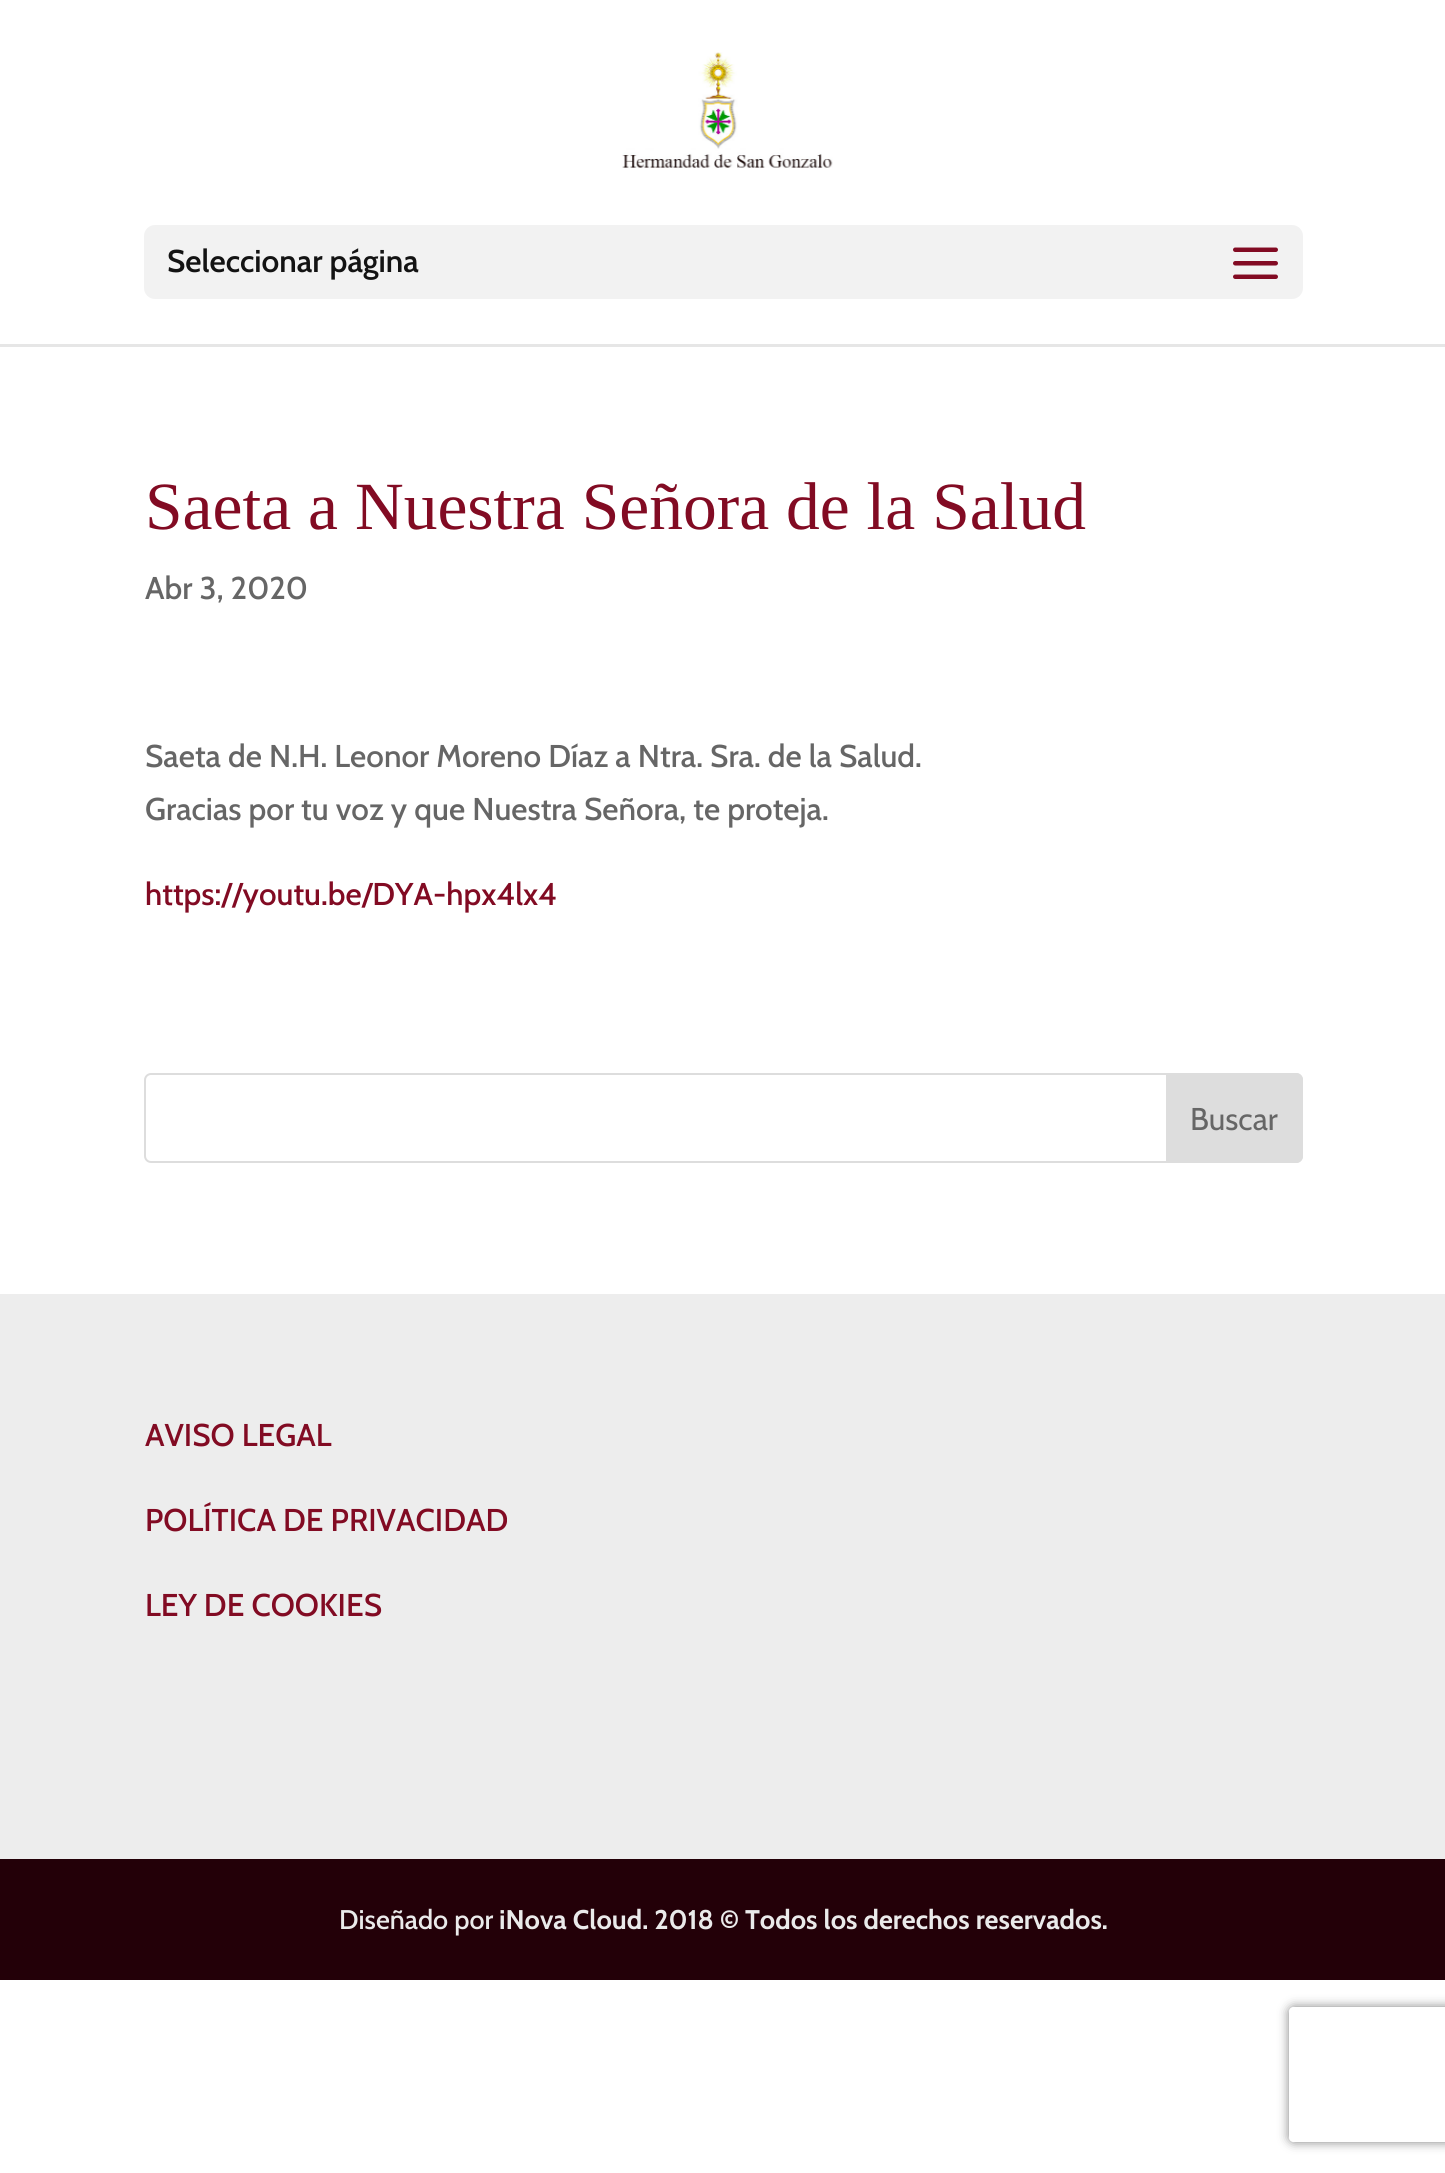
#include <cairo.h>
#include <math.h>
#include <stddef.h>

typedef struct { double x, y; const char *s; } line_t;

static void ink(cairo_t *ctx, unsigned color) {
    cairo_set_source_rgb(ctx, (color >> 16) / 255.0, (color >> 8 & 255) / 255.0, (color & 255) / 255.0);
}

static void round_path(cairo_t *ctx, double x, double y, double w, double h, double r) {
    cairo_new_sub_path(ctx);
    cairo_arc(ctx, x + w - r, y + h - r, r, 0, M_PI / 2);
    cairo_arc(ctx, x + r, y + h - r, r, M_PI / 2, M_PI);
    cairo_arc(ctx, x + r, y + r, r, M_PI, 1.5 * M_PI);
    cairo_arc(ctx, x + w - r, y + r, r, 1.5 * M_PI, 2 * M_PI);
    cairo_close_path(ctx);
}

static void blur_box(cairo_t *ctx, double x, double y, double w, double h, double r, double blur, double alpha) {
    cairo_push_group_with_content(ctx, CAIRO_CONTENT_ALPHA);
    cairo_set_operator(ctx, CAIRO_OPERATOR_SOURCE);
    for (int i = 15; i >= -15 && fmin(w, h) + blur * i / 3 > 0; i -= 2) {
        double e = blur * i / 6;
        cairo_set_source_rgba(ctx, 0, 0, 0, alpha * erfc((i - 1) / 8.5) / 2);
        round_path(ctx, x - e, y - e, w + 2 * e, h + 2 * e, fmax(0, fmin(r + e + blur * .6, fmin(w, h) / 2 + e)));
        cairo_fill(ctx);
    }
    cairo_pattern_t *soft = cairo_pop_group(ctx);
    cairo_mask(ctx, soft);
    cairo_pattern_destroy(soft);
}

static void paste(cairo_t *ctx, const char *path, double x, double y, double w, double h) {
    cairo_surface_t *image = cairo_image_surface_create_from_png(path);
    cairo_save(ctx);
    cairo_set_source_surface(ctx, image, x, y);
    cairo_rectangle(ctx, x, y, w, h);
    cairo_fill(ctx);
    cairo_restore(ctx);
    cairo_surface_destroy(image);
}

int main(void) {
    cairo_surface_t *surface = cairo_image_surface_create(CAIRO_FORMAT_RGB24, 1445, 2173);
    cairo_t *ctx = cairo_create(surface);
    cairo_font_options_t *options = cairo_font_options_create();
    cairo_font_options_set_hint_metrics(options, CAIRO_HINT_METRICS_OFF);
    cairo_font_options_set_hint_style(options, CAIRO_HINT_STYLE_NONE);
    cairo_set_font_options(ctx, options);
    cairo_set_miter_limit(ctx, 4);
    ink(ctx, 0xFFFFFF);
    cairo_paint(ctx);
    ink(ctx, 0xE6E6E6);
    cairo_new_path(ctx);
    cairo_move_to(ctx, 0, 344);
    cairo_line_to(ctx, 0, 347);
    cairo_line_to(ctx, 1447, 347);
    cairo_line_to(ctx, 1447, 2);
    cairo_line_to(ctx, 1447, 344);
    cairo_close_path(ctx);
    cairo_fill(ctx);
    paste(ctx, "media/1.png", 622, 52, 211, 116);
    ink(ctx, 0xF2F2F2);
    round_path(ctx, 144, 225, 1159, 74, 11);
    cairo_fill(ctx);
    cairo_select_font_face(ctx, "Cabin SemiBold", CAIRO_FONT_SLANT_NORMAL, CAIRO_FONT_WEIGHT_NORMAL);
    cairo_set_font_size(ctx, 31.5);
    ink(ctx, 0x131313);
    cairo_move_to(ctx, 167, 272);
    cairo_show_text(ctx, "Seleccionar página");
    paste(ctx, "media/2.png", 1233, 247, 45, 32);
    cairo_select_font_face(ctx, "Liberation Serif", CAIRO_FONT_SLANT_NORMAL, CAIRO_FONT_WEIGHT_NORMAL);
    cairo_set_font_size(ctx, 67.5);
    ink(ctx, 0x820B23);
    cairo_move_to(ctx, 145, 529);
    cairo_show_text(ctx, "Saeta a Nuestra Señora de la Salud");
    cairo_select_font_face(ctx, "Cabin Medium", CAIRO_FONT_SLANT_NORMAL, CAIRO_FONT_WEIGHT_NORMAL);
    cairo_set_font_size(ctx, 31.5);
    ink(ctx, 0x666666);
    {
        static const line_t items[] = {
            {145, 599, "Abr 3, 2020"},
            {145, 767, "Saeta de N.H. Leonor Moreno Díaz a Ntra. Sra. de la Salud."},
            {145, 820, "Gracias por tu voz y que Nuestra Señora, te proteja."},
        };
        for (size_t i = 0; i < sizeof items / sizeof *items; i++) {
            cairo_move_to(ctx, items[i].x, items[i].y);
            cairo_show_text(ctx, items[i].s);
        }
    }
    ink(ctx, 0x820B23);
    cairo_move_to(ctx, 145, 905);
    cairo_show_text(ctx, "https://youtu.be/DYA-hpx4lx4");
    round_path(ctx, 145, 1074, 1157, 88, 6);
    ink(ctx, 0xDDDDDD);
    cairo_stroke(ctx);
    cairo_new_path(ctx);
    cairo_move_to(ctx, 1167, 1074);
    cairo_line_to(ctx, 1296, 1074);
    cairo_curve_to(ctx, 1299.5, 1074, 1302, 1076.5, 1302, 1080);
    cairo_line_to(ctx, 1302, 1156);
    cairo_curve_to(ctx, 1302, 1159.5, 1299.5, 1162, 1296, 1162);
    cairo_line_to(ctx, 1167, 1162);
    cairo_close_path(ctx);
    cairo_fill_preserve(ctx);
    cairo_stroke(ctx);
    cairo_select_font_face(ctx, "Cabin", CAIRO_FONT_SLANT_NORMAL, CAIRO_FONT_WEIGHT_NORMAL);
    ink(ctx, 0x666666);
    cairo_move_to(ctx, 1190, 1130);
    cairo_show_text(ctx, "Buscar");
    ink(ctx, 0xEDEDED);
    cairo_rectangle(ctx, 0, 1294, 1445, 565);
    cairo_fill(ctx);
    cairo_select_font_face(ctx, "Cabin Medium", CAIRO_FONT_SLANT_NORMAL, CAIRO_FONT_WEIGHT_NORMAL);
    ink(ctx, 0x820B23);
    {
        static const line_t items[] = {
            {145, 1446, "AVISO LEGAL"},
            {145, 1531, "POLÍTICA DE PRIVACIDAD"},
            {145, 1616, "LEY DE COOKIES"},
        };
        for (size_t i = 0; i < sizeof items / sizeof *items; i++) {
            cairo_move_to(ctx, items[i].x, items[i].y);
            cairo_show_text(ctx, items[i].s);
        }
    }
    ink(ctx, 0x230008);
    cairo_rectangle(ctx, 0, 1859, 1445, 121);
    cairo_fill(ctx);
    cairo_set_font_size(ctx, 27);
    ink(ctx, 0xEAEAEA);
    cairo_move_to(ctx, 339, 1929);
    cairo_show_text(ctx, "Diseñado por");
    cairo_select_font_face(ctx, "Cabin", CAIRO_FONT_SLANT_NORMAL, CAIRO_FONT_WEIGHT_BOLD);
    cairo_move_to(ctx, 499, 1929);
    cairo_show_text(ctx, "iNova Cloud. 2018 © Todos los derechos reservados.");
    cairo_save(ctx);
    cairo_set_fill_rule(ctx, CAIRO_FILL_RULE_EVEN_ODD);
    cairo_new_path(ctx);
    cairo_move_to(ctx, 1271, 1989);
    cairo_line_to(ctx, 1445, 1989);
    cairo_line_to(ctx, 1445, 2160);
    cairo_line_to(ctx, 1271, 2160);
    cairo_close_path(ctx);
    cairo_move_to(ctx, 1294, 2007);
    cairo_line_to(ctx, 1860, 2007);
    cairo_curve_to(ctx, 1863, 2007, 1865, 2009, 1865, 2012);
    cairo_line_to(ctx, 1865, 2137);
    cairo_curve_to(ctx, 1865, 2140, 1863, 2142, 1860, 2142);
    cairo_line_to(ctx, 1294, 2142);
    cairo_curve_to(ctx, 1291, 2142, 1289, 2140, 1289, 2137);
    cairo_line_to(ctx, 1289, 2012);
    cairo_curve_to(ctx, 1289, 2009, 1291, 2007, 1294, 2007);
    cairo_close_path(ctx);
    cairo_clip(ctx);
    ink(ctx, 0x808080);
    blur_box(ctx, 1289, 2007, 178, 135, 5, 5.5, 1);
    cairo_restore(ctx);
    cairo_surface_write_to_png(surface, "image.png");
    cairo_font_options_destroy(options);
    cairo_destroy(ctx);
    cairo_surface_destroy(surface);
    return 0;
}
